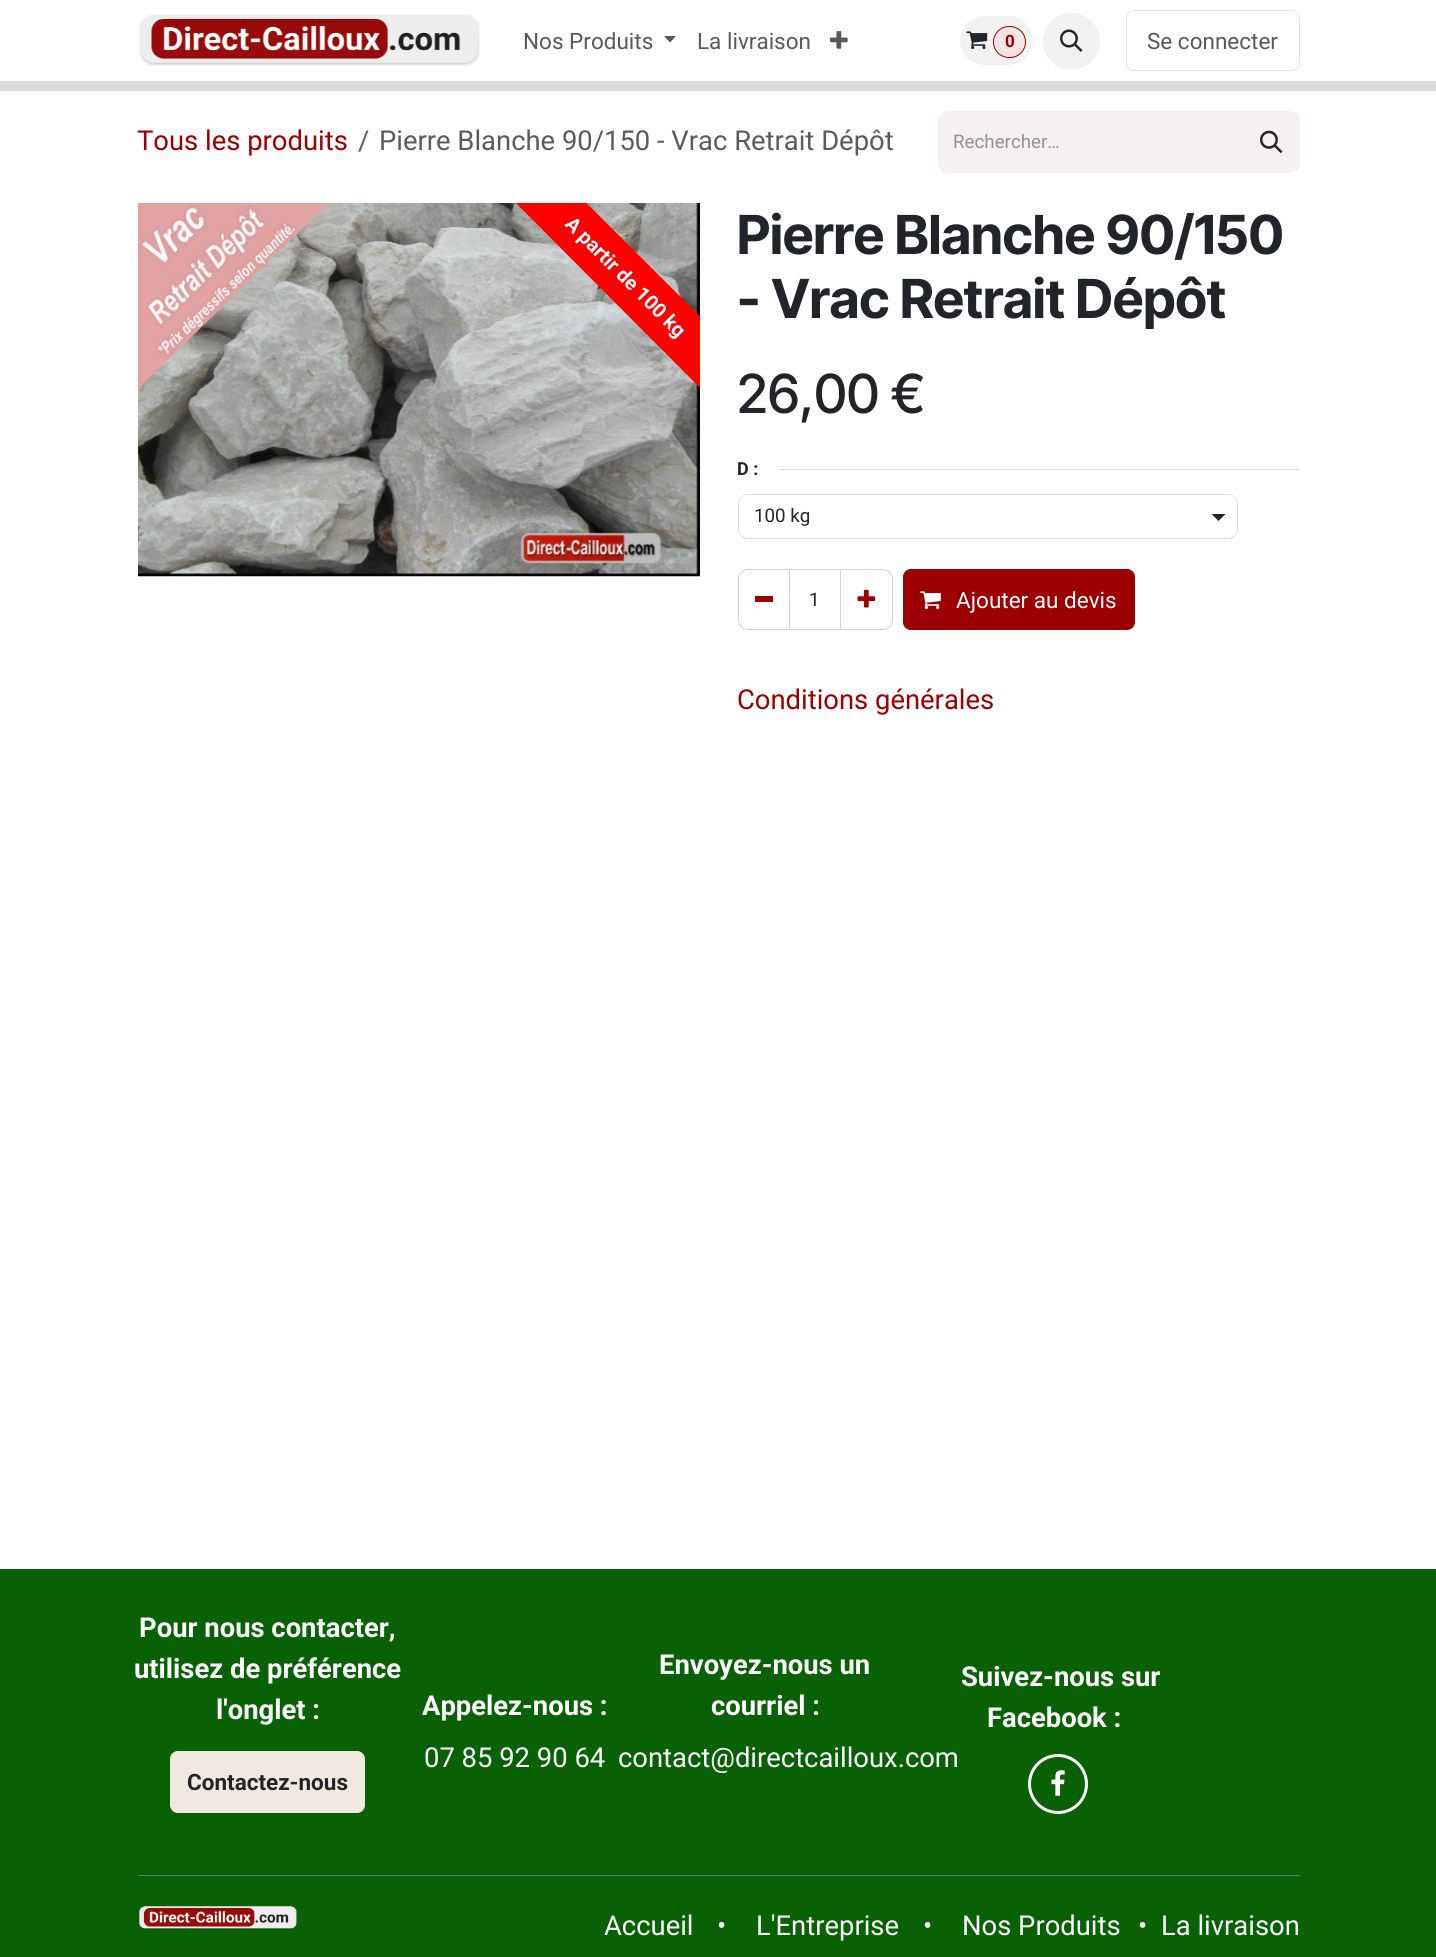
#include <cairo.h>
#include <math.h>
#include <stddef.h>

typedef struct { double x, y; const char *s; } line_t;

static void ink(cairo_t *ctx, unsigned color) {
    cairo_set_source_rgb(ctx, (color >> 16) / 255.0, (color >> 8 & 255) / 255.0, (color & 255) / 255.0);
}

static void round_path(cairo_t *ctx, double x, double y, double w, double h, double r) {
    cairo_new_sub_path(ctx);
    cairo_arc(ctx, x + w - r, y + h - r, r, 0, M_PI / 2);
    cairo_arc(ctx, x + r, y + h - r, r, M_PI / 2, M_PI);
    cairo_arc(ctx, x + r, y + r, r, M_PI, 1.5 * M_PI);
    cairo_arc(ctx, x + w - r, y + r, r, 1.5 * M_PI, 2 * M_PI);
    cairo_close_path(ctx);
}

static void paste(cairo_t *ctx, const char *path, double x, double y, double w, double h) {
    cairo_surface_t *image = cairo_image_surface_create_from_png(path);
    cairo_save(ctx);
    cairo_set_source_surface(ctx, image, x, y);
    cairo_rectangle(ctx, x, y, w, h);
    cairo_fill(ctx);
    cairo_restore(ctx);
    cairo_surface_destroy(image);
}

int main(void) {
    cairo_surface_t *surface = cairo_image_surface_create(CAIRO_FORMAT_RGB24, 1436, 1957);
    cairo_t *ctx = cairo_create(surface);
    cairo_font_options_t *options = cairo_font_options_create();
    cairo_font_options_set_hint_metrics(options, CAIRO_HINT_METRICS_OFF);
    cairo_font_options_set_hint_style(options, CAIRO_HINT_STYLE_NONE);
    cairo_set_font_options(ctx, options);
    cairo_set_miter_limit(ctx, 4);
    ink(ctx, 0xFFFFFF);
    cairo_paint(ctx);
    ink(ctx, 0xD9D9D9);
    cairo_rectangle(ctx, 0, 81, 1436, 10);
    cairo_fill(ctx);
    paste(ctx, "media/1.png", 139, 14, 341, 52);
    cairo_select_font_face(ctx, "Roboto", CAIRO_FONT_SLANT_NORMAL, CAIRO_FONT_WEIGHT_NORMAL);
    cairo_set_font_size(ctx, 22.5);
    ink(ctx, 0x595959);
    cairo_move_to(ctx, 523, 49);
    cairo_show_text(ctx, "Nos Produits");
    cairo_new_path(ctx);
    cairo_move_to(ctx, 664, 36);
    cairo_line_to(ctx, 676, 36);
    cairo_line_to(ctx, 670, 42.5);
    cairo_close_path(ctx);
    cairo_fill(ctx);
    cairo_move_to(ctx, 697, 49);
    cairo_show_text(ctx, "La livraison");
    paste(ctx, "media/2.png", 830, 31, 18, 18);
    ink(ctx, 0xF2F2F2);
    round_path(ctx, 960, 16, 73, 49, 24.5);
    cairo_fill(ctx);
    paste(ctx, "media/3.png", 966, 31, 22, 19);
    ink(ctx, 0xF5E6E6);
    round_path(ctx, 993.5, 26.5, 32, 31, 15.5);
    cairo_fill_preserve(ctx);
    ink(ctx, 0x9C0000);
    cairo_set_line_width(ctx, 1);
    cairo_stroke(ctx);
    cairo_select_font_face(ctx, "Roboto", CAIRO_FONT_SLANT_NORMAL, CAIRO_FONT_WEIGHT_BOLD);
    cairo_set_font_size(ctx, 17);
    cairo_move_to(ctx, 1005, 47);
    cairo_show_text(ctx, "0");
    ink(ctx, 0xF2F2F2);
    cairo_new_path(ctx);
    cairo_arc(ctx, 1071.5, 41.5, 28.5, 0, 2 * M_PI);
    cairo_fill(ctx);
    paste(ctx, "media/4.png", 1060, 29, 23, 23);
    round_path(ctx, 1126.5, 10.5, 173, 60, 7.5);
    ink(ctx, 0xE6E6E6);
    cairo_stroke(ctx);
    cairo_select_font_face(ctx, "Roboto", CAIRO_FONT_SLANT_NORMAL, CAIRO_FONT_WEIGHT_NORMAL);
    cairo_set_font_size(ctx, 22.5);
    ink(ctx, 0x595959);
    cairo_move_to(ctx, 1147, 49);
    cairo_show_text(ctx, "Se connecter");
    cairo_set_font_size(ctx, 27.4);
    ink(ctx, 0x9C0000);
    cairo_move_to(ctx, 137, 150);
    cairo_show_text(ctx, "Tous les produits");
    ink(ctx, 0x595C5F);
    cairo_move_to(ctx, 358, 150);
    cairo_show_text(ctx, "/");
    cairo_move_to(ctx, 379, 150);
    cairo_show_text(ctx, "Pierre Blanche 90/150 - Vrac Retrait Dépôt");
    ink(ctx, 0xF5F0F1);
    cairo_new_path(ctx);
    cairo_move_to(ctx, 948, 111);
    cairo_line_to(ctx, 1244, 111);
    cairo_line_to(ctx, 1244, 173);
    cairo_line_to(ctx, 948, 173);
    cairo_curve_to(ctx, 942.5, 173, 938, 168.5, 938, 163);
    cairo_line_to(ctx, 938, 121);
    cairo_curve_to(ctx, 938, 115.5, 942.5, 111, 948, 111);
    cairo_close_path(ctx);
    cairo_fill(ctx);
    cairo_set_font_size(ctx, 18.75);
    ink(ctx, 0x909294);
    cairo_move_to(ctx, 953, 148);
    cairo_show_text(ctx, "Rechercher…");
    ink(ctx, 0xF5F0F1);
    cairo_new_path(ctx);
    cairo_move_to(ctx, 1243.5, 111.5);
    cairo_line_to(ctx, 1290, 111.5);
    cairo_curve_to(ctx, 1295, 111.5, 1299.5, 116, 1299.5, 121);
    cairo_line_to(ctx, 1299.5, 163);
    cairo_curve_to(ctx, 1299.5, 168, 1295, 172.5, 1290, 172.5);
    cairo_line_to(ctx, 1243.5, 172.5);
    cairo_close_path(ctx);
    cairo_fill_preserve(ctx);
    cairo_stroke(ctx);
    paste(ctx, "media/5.png", 1260, 130, 23, 24);
    paste(ctx, "media/6.png", 138, 203, 562, 374);
    cairo_save(ctx);
    cairo_rectangle(ctx, 138, 203, 562, 373);
    cairo_clip(ctx);
    ink(ctx, 0xFF0000);
    cairo_new_path(ctx);
    cairo_move_to(ctx, 497, 114);
    cairo_line_to(ctx, 788, 404);
    cairo_line_to(ctx, 752, 440);
    cairo_line_to(ctx, 462, 149);
    cairo_close_path(ctx);
    cairo_fill(ctx);
    cairo_restore(ctx);
    cairo_select_font_face(ctx, "Roboto", CAIRO_FONT_SLANT_NORMAL, CAIRO_FONT_WEIGHT_BOLD);
    cairo_set_font_size(ctx, 20);
    ink(ctx, 0xFFFFFF);
    cairo_save(ctx);
    cairo_translate(ctx, 564, 225);
    cairo_rotate(ctx, 45 * M_PI / 180);
    cairo_move_to(ctx, 0, 0);
    cairo_show_text(ctx, "A partir de 100 kg");
    cairo_restore(ctx);
    cairo_select_font_face(ctx, "Inter Tight", CAIRO_FONT_SLANT_NORMAL, CAIRO_FONT_WEIGHT_BOLD);
    cairo_set_font_size(ctx, 53.8);
    ink(ctx, 0x212529);
    cairo_move_to(ctx, 737, 254);
    cairo_show_text(ctx, "Pierre Blanche 90/150");
    cairo_move_to(ctx, 737, 318);
    cairo_show_text(ctx, "- Vrac Retrait Dépôt");
    cairo_select_font_face(ctx, "Inter Tight Medium", CAIRO_FONT_SLANT_NORMAL, CAIRO_FONT_WEIGHT_NORMAL);
    cairo_move_to(ctx, 737, 413);
    cairo_show_text(ctx, "26,00 €");
    cairo_select_font_face(ctx, "Roboto", CAIRO_FONT_SLANT_NORMAL, CAIRO_FONT_WEIGHT_BOLD);
    cairo_set_font_size(ctx, 18);
    cairo_move_to(ctx, 737, 475);
    cairo_show_text(ctx, "D :");
    ink(ctx, 0xDEDEDF);
    cairo_rectangle(ctx, 778, 469, 522, 1);
    cairo_fill(ctx);
    ink(ctx, 0x212529);
    cairo_new_path(ctx);
    cairo_move_to(ctx, 1211.5, 514);
    cairo_line_to(ctx, 1225.5, 514);
    cairo_line_to(ctx, 1218.5, 521);
    cairo_close_path(ctx);
    cairo_fill(ctx);
    round_path(ctx, 738.5, 494.5, 499, 44, 9.5);
    ink(ctx, 0xDEDEDF);
    cairo_stroke(ctx);
    cairo_select_font_face(ctx, "Roboto", CAIRO_FONT_SLANT_NORMAL, CAIRO_FONT_WEIGHT_NORMAL);
    cairo_set_font_size(ctx, 18.75);
    ink(ctx, 0x212529);
    cairo_move_to(ctx, 754, 522);
    cairo_show_text(ctx, "100 kg");
    cairo_rectangle(ctx, 789.5, 569.5, 51, 60);
    ink(ctx, 0xCED4DA);
    cairo_stroke(ctx);
    cairo_new_path(ctx);
    cairo_move_to(ctx, 748, 569.5);
    cairo_line_to(ctx, 789.5, 569.5);
    cairo_line_to(ctx, 789.5, 629.5);
    cairo_line_to(ctx, 748, 629.5);
    cairo_curve_to(ctx, 743, 629.5, 738.5, 625, 738.5, 620);
    cairo_line_to(ctx, 738.5, 579);
    cairo_curve_to(ctx, 738.5, 574, 743, 569.5, 748, 569.5);
    cairo_close_path(ctx);
    cairo_stroke(ctx);
    ink(ctx, 0x9C0000);
    cairo_rectangle(ctx, 755, 596, 18, 6);
    cairo_fill(ctx);
    ink(ctx, 0x212529);
    cairo_move_to(ctx, 809, 606);
    cairo_show_text(ctx, "1");
    cairo_new_path(ctx);
    cairo_move_to(ctx, 840.5, 569.5);
    cairo_line_to(ctx, 883, 569.5);
    cairo_curve_to(ctx, 888, 569.5, 892.5, 574, 892.5, 579);
    cairo_line_to(ctx, 892.5, 620);
    cairo_curve_to(ctx, 892.5, 625, 888, 629.5, 883, 629.5);
    cairo_line_to(ctx, 840.5, 629.5);
    cairo_close_path(ctx);
    ink(ctx, 0xCED4DA);
    cairo_stroke(ctx);
    paste(ctx, "media/7.png", 857, 589, 19, 19);
    ink(ctx, 0x9C0000);
    round_path(ctx, 903.5, 569.5, 231, 60, 7.5);
    cairo_fill_preserve(ctx);
    cairo_stroke(ctx);
    paste(ctx, "media/8.png", 920, 591, 21, 19);
    cairo_set_font_size(ctx, 22.5);
    ink(ctx, 0xFFFFFF);
    cairo_move_to(ctx, 956, 608);
    cairo_show_text(ctx, "Ajouter au devis");
    cairo_set_font_size(ctx, 27.4);
    ink(ctx, 0x9C0000);
    cairo_move_to(ctx, 737, 709);
    cairo_show_text(ctx, "Conditions générales");
    ink(ctx, 0x096105);
    cairo_rectangle(ctx, 0, 1569, 1436, 388);
    cairo_fill(ctx);
    cairo_select_font_face(ctx, "Roboto", CAIRO_FONT_SLANT_NORMAL, CAIRO_FONT_WEIGHT_BOLD);
    ink(ctx, 0xFFFFFF);
    {
        static const line_t items[] = {
            {139, 1637, "Pour nous contacter,"},
            {134, 1678, "utilisez de préférence"},
            {216, 1719, "l'onglet :"},
        };
        for (size_t i = 0; i < sizeof items / sizeof *items; i++) {
            cairo_move_to(ctx, items[i].x, items[i].y);
            cairo_show_text(ctx, items[i].s);
        }
    }
    ink(ctx, 0xF0E9E0);
    round_path(ctx, 170.5, 1751.5, 194, 61, 7.5);
    cairo_fill_preserve(ctx);
    cairo_stroke(ctx);
    cairo_set_font_size(ctx, 22.5);
    ink(ctx, 0x212529);
    cairo_move_to(ctx, 187, 1790);
    cairo_show_text(ctx, "Contactez-nous");
    cairo_set_font_size(ctx, 27.4);
    ink(ctx, 0xFFFFFF);
    cairo_move_to(ctx, 422, 1715);
    cairo_show_text(ctx, "Appelez-nous :");
    cairo_select_font_face(ctx, "Roboto", CAIRO_FONT_SLANT_NORMAL, CAIRO_FONT_WEIGHT_NORMAL);
    cairo_move_to(ctx, 424, 1767);
    cairo_show_text(ctx, "07 85 92 90 64");
    cairo_select_font_face(ctx, "Roboto", CAIRO_FONT_SLANT_NORMAL, CAIRO_FONT_WEIGHT_BOLD);
    cairo_move_to(ctx, 659, 1674);
    cairo_show_text(ctx, "Envoyez-nous un");
    cairo_move_to(ctx, 711, 1715);
    cairo_show_text(ctx, "courriel :");
    cairo_select_font_face(ctx, "Roboto", CAIRO_FONT_SLANT_NORMAL, CAIRO_FONT_WEIGHT_NORMAL);
    cairo_move_to(ctx, 618, 1767);
    cairo_show_text(ctx, "contact@directcailloux.com");
    cairo_select_font_face(ctx, "Roboto", CAIRO_FONT_SLANT_NORMAL, CAIRO_FONT_WEIGHT_BOLD);
    cairo_move_to(ctx, 961, 1686);
    cairo_show_text(ctx, "Suivez-nous sur");
    cairo_move_to(ctx, 987, 1727);
    cairo_show_text(ctx, "Facebook :");
    cairo_new_path(ctx);
    cairo_arc(ctx, 1058, 1784, 28.5, 0, 2 * M_PI);
    cairo_set_line_width(ctx, 3);
    cairo_stroke(ctx);
    paste(ctx, "media/9.png", 1051, 1770, 14, 26);
    ink(ctx, 0x6C757D);
    cairo_rectangle(ctx, 138, 1875, 1162, 1);
    cairo_fill(ctx);
    paste(ctx, "media/10.png", 139, 1906, 158, 24);
    cairo_select_font_face(ctx, "Roboto", CAIRO_FONT_SLANT_NORMAL, CAIRO_FONT_WEIGHT_NORMAL);
    ink(ctx, 0xFFFFFF);
    {
        static const line_t items[] = {
            {604, 1935, "Accueil"},
            {717, 1935, "•"},
            {756, 1935, "L'Entreprise"},
            {923, 1935, "•"},
            {962, 1935, "Nos Produits"},
            {1138, 1935, "•"},
            {1161, 1935, "La livraison"},
        };
        for (size_t i = 0; i < sizeof items / sizeof *items; i++) {
            cairo_move_to(ctx, items[i].x, items[i].y);
            cairo_show_text(ctx, items[i].s);
        }
    }
    cairo_surface_write_to_png(surface, "image.png");
    cairo_font_options_destroy(options);
    cairo_destroy(ctx);
    cairo_surface_destroy(surface);
    return 0;
}
